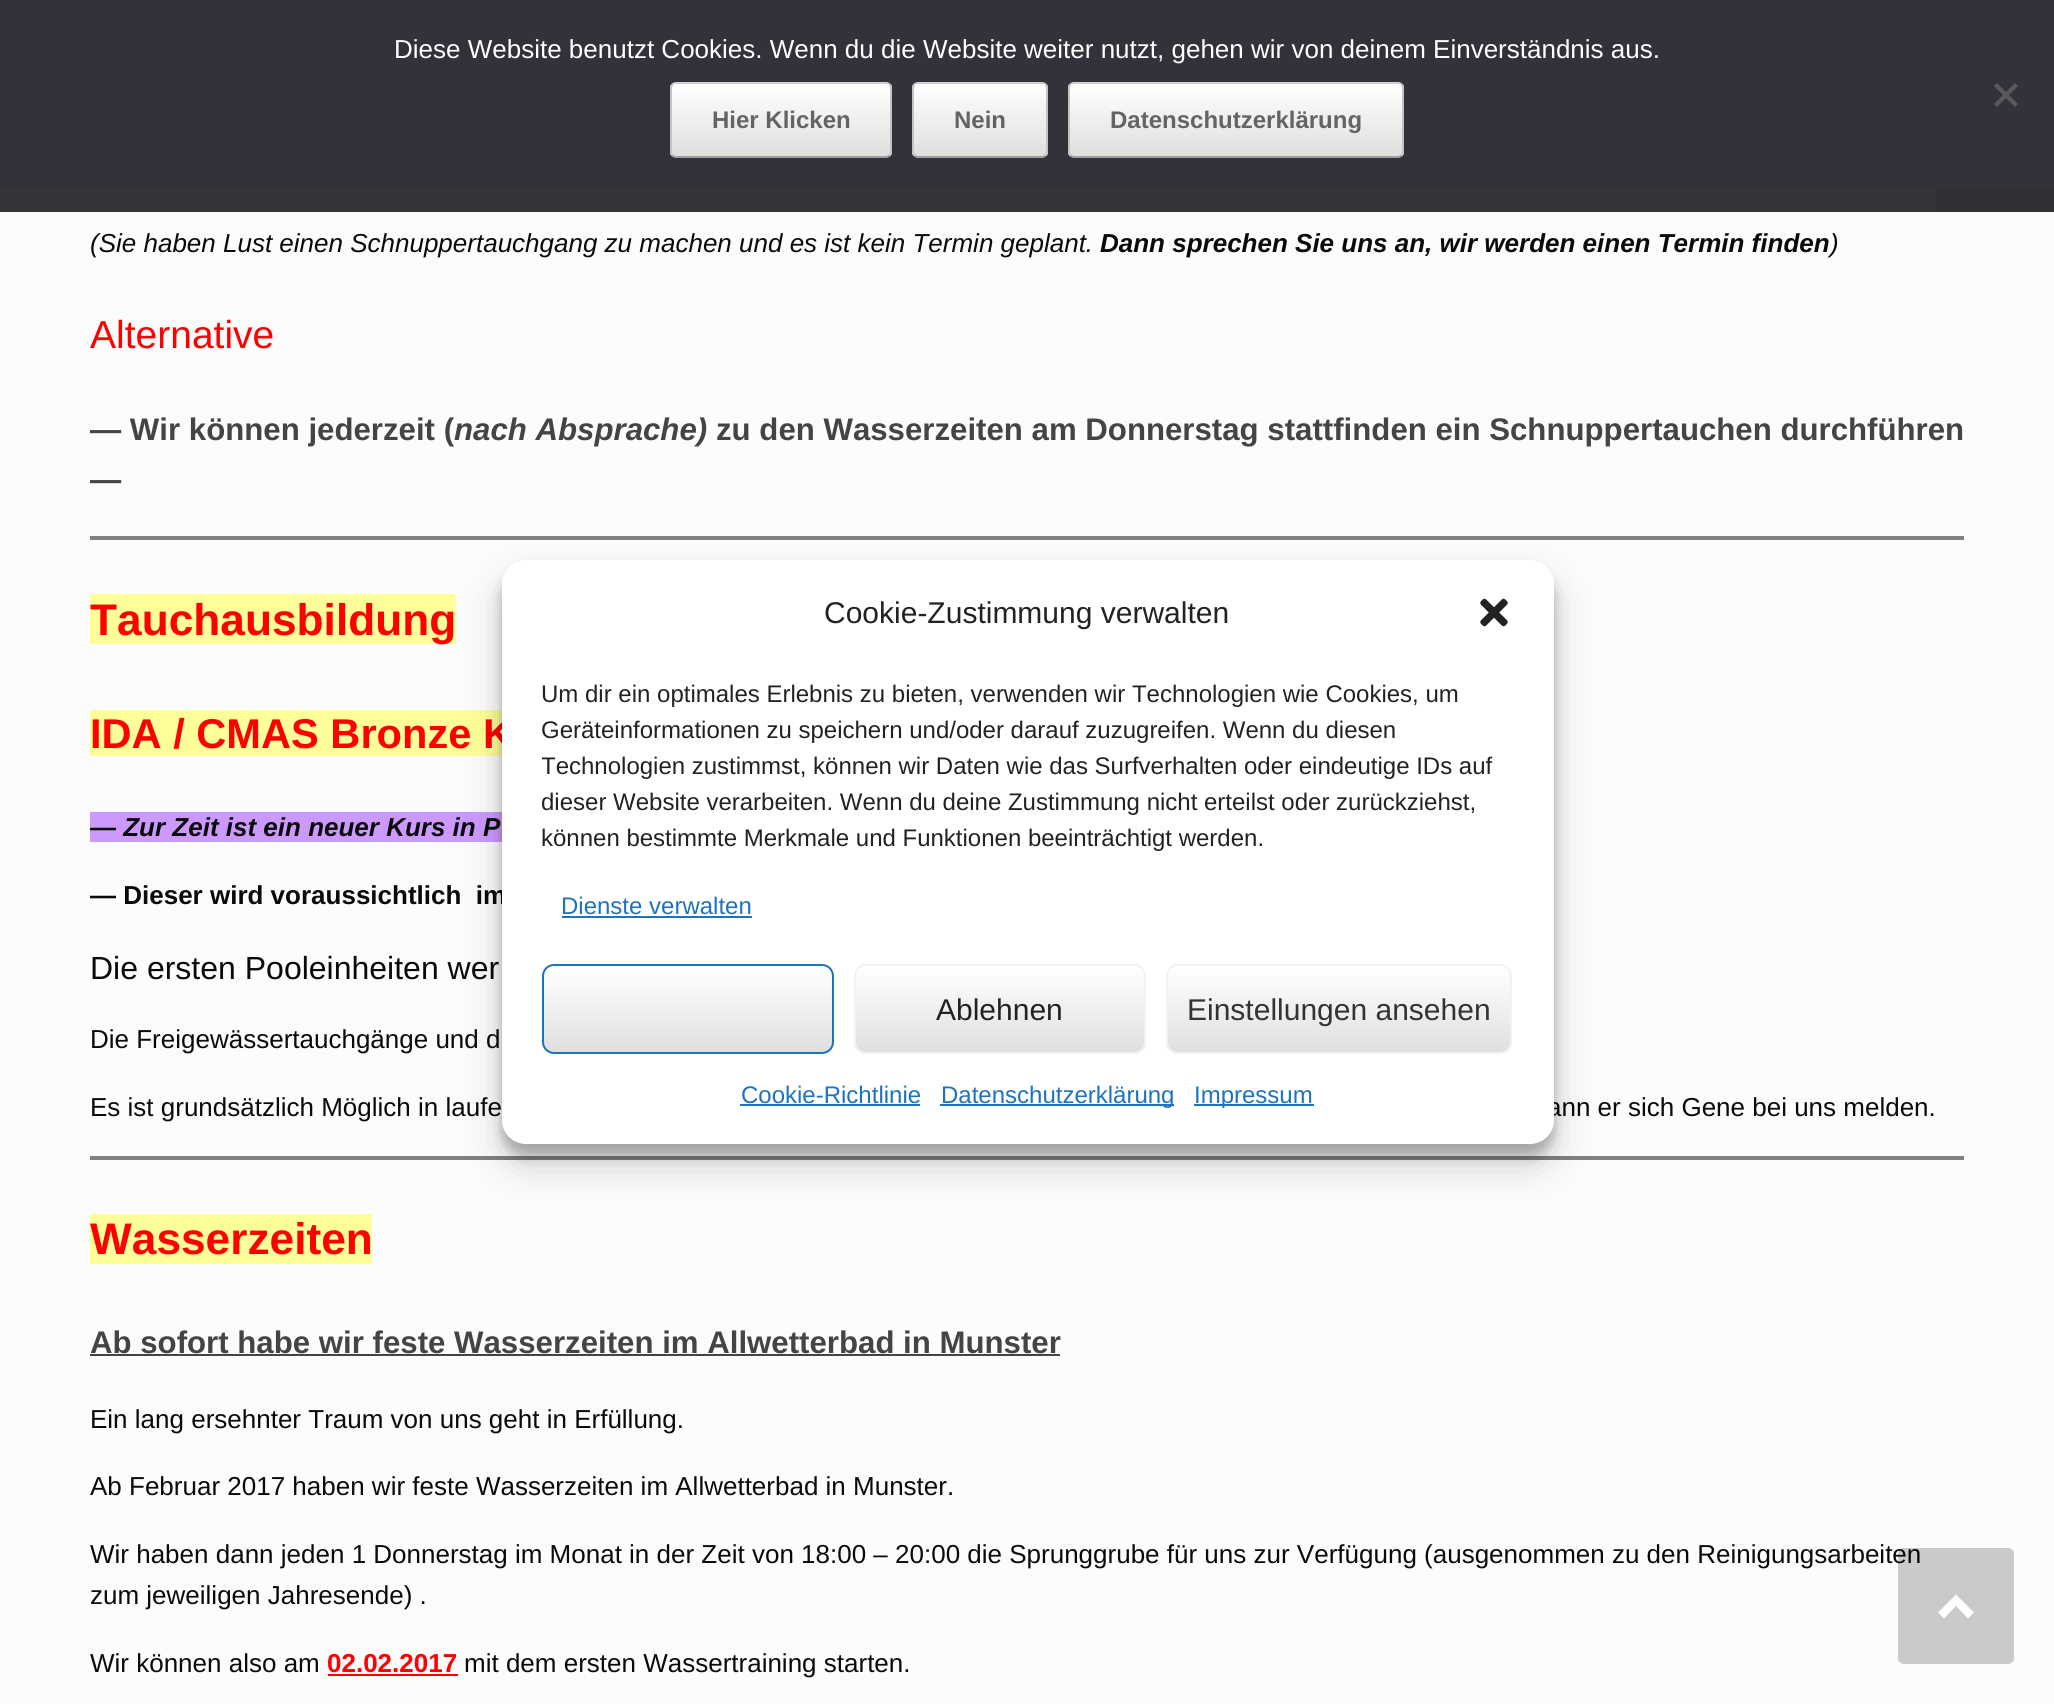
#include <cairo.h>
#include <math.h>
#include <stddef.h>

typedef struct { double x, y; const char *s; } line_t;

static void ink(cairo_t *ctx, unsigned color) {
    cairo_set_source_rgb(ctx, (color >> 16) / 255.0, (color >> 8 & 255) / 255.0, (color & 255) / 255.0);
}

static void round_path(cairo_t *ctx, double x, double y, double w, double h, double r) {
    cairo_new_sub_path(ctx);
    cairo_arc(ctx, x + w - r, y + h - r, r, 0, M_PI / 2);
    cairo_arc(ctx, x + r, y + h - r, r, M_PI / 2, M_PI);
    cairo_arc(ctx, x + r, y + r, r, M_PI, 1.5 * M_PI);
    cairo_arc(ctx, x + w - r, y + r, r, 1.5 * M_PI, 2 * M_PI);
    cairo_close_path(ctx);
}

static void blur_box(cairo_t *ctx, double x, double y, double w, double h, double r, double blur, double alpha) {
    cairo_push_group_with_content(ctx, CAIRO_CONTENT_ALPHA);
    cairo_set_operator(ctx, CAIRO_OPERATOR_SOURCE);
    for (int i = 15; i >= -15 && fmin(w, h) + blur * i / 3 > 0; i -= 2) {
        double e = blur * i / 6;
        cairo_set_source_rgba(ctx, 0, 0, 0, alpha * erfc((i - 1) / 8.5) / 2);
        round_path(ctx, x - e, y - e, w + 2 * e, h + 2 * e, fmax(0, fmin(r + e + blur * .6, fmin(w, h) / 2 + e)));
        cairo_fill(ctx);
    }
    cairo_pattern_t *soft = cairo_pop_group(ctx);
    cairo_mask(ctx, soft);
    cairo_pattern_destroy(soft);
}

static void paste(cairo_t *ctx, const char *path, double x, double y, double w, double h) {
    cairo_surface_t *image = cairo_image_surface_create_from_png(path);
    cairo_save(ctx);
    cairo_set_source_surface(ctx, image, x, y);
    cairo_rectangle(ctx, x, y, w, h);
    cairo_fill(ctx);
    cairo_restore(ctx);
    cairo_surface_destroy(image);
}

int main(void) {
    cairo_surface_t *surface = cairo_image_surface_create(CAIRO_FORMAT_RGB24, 2054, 1704);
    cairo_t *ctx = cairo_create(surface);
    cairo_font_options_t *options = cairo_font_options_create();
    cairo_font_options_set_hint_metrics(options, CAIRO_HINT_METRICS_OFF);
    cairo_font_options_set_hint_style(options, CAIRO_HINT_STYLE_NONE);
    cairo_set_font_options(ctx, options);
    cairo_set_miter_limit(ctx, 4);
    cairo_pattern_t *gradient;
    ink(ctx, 0xFCFCFC);
    cairo_paint(ctx);
    ink(ctx, 0x32323A);
    cairo_rectangle(ctx, 0, 0, 2054, 188);
    cairo_fill(ctx);
    cairo_select_font_face(ctx, "Liberation Sans", CAIRO_FONT_SLANT_NORMAL, CAIRO_FONT_WEIGHT_NORMAL);
    cairo_set_font_size(ctx, 26);
    ink(ctx, 0xFFFFFF);
    cairo_move_to(ctx, 394, 58);
    cairo_show_text(ctx, "Diese Website benutzt Cookies. Wenn du die Website weiter nutzt, gehen wir von deinem Einverständnis aus.");
    ink(ctx, 0x59595D);
    cairo_new_path(ctx);
    cairo_move_to(ctx, 2015, 83);
    cairo_line_to(ctx, 2018, 86);
    cairo_line_to(ctx, 1997, 107);
    cairo_line_to(ctx, 1994, 104);
    cairo_close_path(ctx);
    cairo_fill(ctx);
    cairo_new_path(ctx);
    cairo_move_to(ctx, 1994, 86);
    cairo_line_to(ctx, 1997, 83);
    cairo_line_to(ctx, 2018, 104);
    cairo_line_to(ctx, 2015, 107);
    cairo_close_path(ctx);
    cairo_fill(ctx);
    cairo_save(ctx);
    round_path(ctx, 670, 82, 222, 76, 6);
    cairo_clip(ctx);
    gradient = cairo_pattern_create_linear(672, 156, 672, 84);
    cairo_pattern_add_color_stop_rgba(gradient, 0, 0.875, 0.875, 0.875, 1);
    cairo_pattern_add_color_stop_rgba(gradient, 1, 1, 1, 1, 1);
    cairo_set_source(ctx, gradient);
    cairo_pattern_destroy(gradient);
    cairo_rectangle(ctx, 670, 84, 222, 72);
    cairo_fill(ctx);
    cairo_restore(ctx);
    cairo_new_path(ctx);
    cairo_move_to(ctx, 672.5, 84.5);
    cairo_curve_to(ctx, 673.5, 83.5, 674.5, 83, 676, 83);
    cairo_line_to(ctx, 886, 83);
    cairo_curve_to(ctx, 887.5, 83, 888.5, 83.5, 889.5, 84.5);
    ink(ctx, 0xD2D2D2);
    cairo_stroke(ctx);
    cairo_new_path(ctx);
    cairo_move_to(ctx, 889.5, 84.5);
    cairo_curve_to(ctx, 890.5, 85.5, 891, 86.5, 891, 88);
    cairo_line_to(ctx, 891, 152);
    cairo_curve_to(ctx, 891, 153.5, 890.5, 154.5, 889.5, 155.5);
    ink(ctx, 0xC3C3C3);
    cairo_stroke(ctx);
    cairo_new_path(ctx);
    cairo_move_to(ctx, 889.5, 155.5);
    cairo_curve_to(ctx, 888.5, 156.5, 887.5, 157, 886, 157);
    cairo_line_to(ctx, 676, 157);
    cairo_curve_to(ctx, 674.5, 157, 673.5, 156.5, 672.5, 155.5);
    ink(ctx, 0x9F9F9F);
    cairo_stroke(ctx);
    cairo_new_path(ctx);
    cairo_move_to(ctx, 672.5, 155.5);
    cairo_curve_to(ctx, 671.5, 154.5, 671, 153.5, 671, 152);
    cairo_line_to(ctx, 671, 88);
    cairo_curve_to(ctx, 671, 86.5, 671.5, 85.5, 672.5, 84.5);
    ink(ctx, 0xC3C3C3);
    cairo_stroke(ctx);
    cairo_select_font_face(ctx, "Liberation Sans", CAIRO_FONT_SLANT_NORMAL, CAIRO_FONT_WEIGHT_BOLD);
    cairo_set_font_size(ctx, 24);
    ink(ctx, 0x646464);
    cairo_move_to(ctx, 712, 128);
    cairo_show_text(ctx, "Hier Klicken");
    cairo_save(ctx);
    round_path(ctx, 912, 82, 136, 76, 6);
    cairo_clip(ctx);
    gradient = cairo_pattern_create_linear(914, 156, 914, 84);
    cairo_pattern_add_color_stop_rgba(gradient, 0, 0.875, 0.875, 0.875, 1);
    cairo_pattern_add_color_stop_rgba(gradient, 1, 1, 1, 1, 1);
    cairo_set_source(ctx, gradient);
    cairo_pattern_destroy(gradient);
    cairo_rectangle(ctx, 912, 84, 136, 72);
    cairo_fill(ctx);
    cairo_restore(ctx);
    cairo_new_path(ctx);
    cairo_move_to(ctx, 914.5, 84.5);
    cairo_curve_to(ctx, 915.5, 83.5, 916.5, 83, 918, 83);
    cairo_line_to(ctx, 1042, 83);
    cairo_curve_to(ctx, 1043.5, 83, 1044.5, 83.5, 1045.5, 84.5);
    ink(ctx, 0xD2D2D2);
    cairo_stroke(ctx);
    cairo_new_path(ctx);
    cairo_move_to(ctx, 1045.5, 84.5);
    cairo_curve_to(ctx, 1046.5, 85.5, 1047, 86.5, 1047, 88);
    cairo_line_to(ctx, 1047, 152);
    cairo_curve_to(ctx, 1047, 153.5, 1046.5, 154.5, 1045.5, 155.5);
    ink(ctx, 0xC3C3C3);
    cairo_stroke(ctx);
    cairo_new_path(ctx);
    cairo_move_to(ctx, 1045.5, 155.5);
    cairo_curve_to(ctx, 1044.5, 156.5, 1043.5, 157, 1042, 157);
    cairo_line_to(ctx, 918, 157);
    cairo_curve_to(ctx, 916.5, 157, 915.5, 156.5, 914.5, 155.5);
    ink(ctx, 0x9F9F9F);
    cairo_stroke(ctx);
    cairo_new_path(ctx);
    cairo_move_to(ctx, 914.5, 155.5);
    cairo_curve_to(ctx, 913.5, 154.5, 913, 153.5, 913, 152);
    cairo_line_to(ctx, 913, 88);
    cairo_curve_to(ctx, 913, 86.5, 913.5, 85.5, 914.5, 84.5);
    ink(ctx, 0xC3C3C3);
    cairo_stroke(ctx);
    ink(ctx, 0x646464);
    cairo_move_to(ctx, 954, 128);
    cairo_show_text(ctx, "Nein");
    cairo_save(ctx);
    round_path(ctx, 1068, 82, 336, 76, 6);
    cairo_clip(ctx);
    gradient = cairo_pattern_create_linear(1070, 156, 1070, 84);
    cairo_pattern_add_color_stop_rgba(gradient, 0, 0.875, 0.875, 0.875, 1);
    cairo_pattern_add_color_stop_rgba(gradient, 1, 1, 1, 1, 1);
    cairo_set_source(ctx, gradient);
    cairo_pattern_destroy(gradient);
    cairo_rectangle(ctx, 1068, 84, 336, 72);
    cairo_fill(ctx);
    cairo_restore(ctx);
    cairo_new_path(ctx);
    cairo_move_to(ctx, 1070.5, 84.5);
    cairo_curve_to(ctx, 1071.5, 83.5, 1072.5, 83, 1074, 83);
    cairo_line_to(ctx, 1398, 83);
    cairo_curve_to(ctx, 1399.5, 83, 1400.5, 83.5, 1401.5, 84.5);
    ink(ctx, 0xD2D2D2);
    cairo_stroke(ctx);
    cairo_new_path(ctx);
    cairo_move_to(ctx, 1401.5, 84.5);
    cairo_curve_to(ctx, 1402.5, 85.5, 1403, 86.5, 1403, 88);
    cairo_line_to(ctx, 1403, 152);
    cairo_curve_to(ctx, 1403, 153.5, 1402.5, 154.5, 1401.5, 155.5);
    ink(ctx, 0xC3C3C3);
    cairo_stroke(ctx);
    cairo_new_path(ctx);
    cairo_move_to(ctx, 1401.5, 155.5);
    cairo_curve_to(ctx, 1400.5, 156.5, 1399.5, 157, 1398, 157);
    cairo_line_to(ctx, 1074, 157);
    cairo_curve_to(ctx, 1072.5, 157, 1071.5, 156.5, 1070.5, 155.5);
    ink(ctx, 0x9F9F9F);
    cairo_stroke(ctx);
    cairo_new_path(ctx);
    cairo_move_to(ctx, 1070.5, 155.5);
    cairo_curve_to(ctx, 1069.5, 154.5, 1069, 153.5, 1069, 152);
    cairo_line_to(ctx, 1069, 88);
    cairo_curve_to(ctx, 1069, 86.5, 1069.5, 85.5, 1070.5, 84.5);
    ink(ctx, 0xC3C3C3);
    cairo_stroke(ctx);
    ink(ctx, 0x646464);
    cairo_move_to(ctx, 1110, 128);
    cairo_show_text(ctx, "Datenschutzerklärung");
    ink(ctx, 0x343538);
    cairo_rectangle(ctx, 0, 188, 1936, 24);
    cairo_fill(ctx);
    ink(ctx, 0x303134);
    cairo_rectangle(ctx, 1936, 188, 118, 24);
    cairo_fill(ctx);
    cairo_select_font_face(ctx, "Liberation Sans", CAIRO_FONT_SLANT_ITALIC, CAIRO_FONT_WEIGHT_NORMAL);
    cairo_set_font_size(ctx, 26);
    ink(ctx, 0x0A0A0A);
    cairo_move_to(ctx, 90, 252);
    cairo_show_text(ctx, "(Sie haben Lust einen Schnuppertauchgang zu machen und es ist kein Termin geplant.");
    cairo_select_font_face(ctx, "Liberation Sans", CAIRO_FONT_SLANT_ITALIC, CAIRO_FONT_WEIGHT_BOLD);
    cairo_move_to(ctx, 1100, 252);
    cairo_show_text(ctx, "Dann sprechen Sie uns an, wir werden einen Termin finden");
    cairo_select_font_face(ctx, "Liberation Sans", CAIRO_FONT_SLANT_ITALIC, CAIRO_FONT_WEIGHT_NORMAL);
    cairo_move_to(ctx, 1830, 252);
    cairo_show_text(ctx, ")");
    cairo_select_font_face(ctx, "Liberation Sans", CAIRO_FONT_SLANT_NORMAL, CAIRO_FONT_WEIGHT_NORMAL);
    cairo_set_font_size(ctx, 39);
    ink(ctx, 0xFF0000);
    cairo_move_to(ctx, 90, 348);
    cairo_show_text(ctx, "Alternative");
    cairo_select_font_face(ctx, "Liberation Sans", CAIRO_FONT_SLANT_NORMAL, CAIRO_FONT_WEIGHT_BOLD);
    cairo_set_font_size(ctx, 31.2);
    ink(ctx, 0x444444);
    cairo_move_to(ctx, 90, 440);
    cairo_show_text(ctx, "— Wir können jederzeit (");
    cairo_select_font_face(ctx, "Liberation Sans", CAIRO_FONT_SLANT_ITALIC, CAIRO_FONT_WEIGHT_BOLD);
    cairo_move_to(ctx, 454, 440);
    cairo_show_text(ctx, "nach Absprache)");
    cairo_select_font_face(ctx, "Liberation Sans", CAIRO_FONT_SLANT_NORMAL, CAIRO_FONT_WEIGHT_BOLD);
    cairo_move_to(ctx, 716, 440);
    cairo_show_text(ctx, "zu den Wasserzeiten am Donnerstag stattfinden ein Schnuppertauchen durchführen");
    cairo_move_to(ctx, 90, 490);
    cairo_show_text(ctx, "—");
    ink(ctx, 0x808080);
    cairo_rectangle(ctx, 90, 536, 1874, 4);
    cairo_fill(ctx);
    ink(ctx, 0xFFFF99);
    cairo_rectangle(ctx, 90, 594, 366, 50);
    cairo_fill(ctx);
    cairo_set_font_size(ctx, 44.25);
    ink(ctx, 0xFF0000);
    cairo_move_to(ctx, 90, 635);
    cairo_show_text(ctx, "Tauchausbildung");
    ink(ctx, 0xFFFF99);
    cairo_rectangle(ctx, 90, 710, 412, 46);
    cairo_fill(ctx);
    cairo_set_font_size(ctx, 41.6);
    ink(ctx, 0xFF0000);
    cairo_move_to(ctx, 90, 748);
    cairo_show_text(ctx, "IDA / CMAS Bronze K");
    ink(ctx, 0xCC99FF);
    cairo_rectangle(ctx, 90, 812, 412, 30);
    cairo_fill(ctx);
    cairo_select_font_face(ctx, "Liberation Sans", CAIRO_FONT_SLANT_ITALIC, CAIRO_FONT_WEIGHT_BOLD);
    cairo_set_font_size(ctx, 26);
    ink(ctx, 0x0A0A0A);
    cairo_move_to(ctx, 90, 836);
    cairo_show_text(ctx, "— Zur Zeit ist ein neuer Kurs in P");
    cairo_select_font_face(ctx, "Liberation Sans", CAIRO_FONT_SLANT_NORMAL, CAIRO_FONT_WEIGHT_BOLD);
    cairo_move_to(ctx, 90, 904);
    cairo_show_text(ctx, "— Dieser wird voraussichtlich  im");
    cairo_select_font_face(ctx, "Liberation Sans", CAIRO_FONT_SLANT_NORMAL, CAIRO_FONT_WEIGHT_NORMAL);
    cairo_set_font_size(ctx, 32);
    cairo_move_to(ctx, 90, 979);
    cairo_show_text(ctx, "Die ersten Pooleinheiten wer");
    cairo_set_font_size(ctx, 26);
    {
        static const line_t items[] = {
            {90, 1048, "Die Freigewässertauchgänge und d"},
            {90, 1116, "Es ist grundsätzlich Möglich in laufe"},
            {1547, 1116, "ann er sich Gene bei uns melden."},
        };
        for (size_t i = 0; i < sizeof items / sizeof *items; i++) {
            cairo_move_to(ctx, items[i].x, items[i].y);
            cairo_show_text(ctx, items[i].s);
        }
    }
    ink(ctx, 0x808080);
    cairo_rectangle(ctx, 90, 1156, 1874, 4);
    cairo_fill(ctx);
    ink(ctx, 0xFFFF99);
    cairo_rectangle(ctx, 90, 1214, 282, 50);
    cairo_fill(ctx);
    cairo_select_font_face(ctx, "Liberation Sans", CAIRO_FONT_SLANT_NORMAL, CAIRO_FONT_WEIGHT_BOLD);
    cairo_set_font_size(ctx, 44.25);
    ink(ctx, 0xFF0000);
    cairo_move_to(ctx, 90, 1254);
    cairo_show_text(ctx, "Wasserzeiten");
    cairo_set_font_size(ctx, 31.2);
    ink(ctx, 0x444444);
    cairo_move_to(ctx, 90, 1353);
    cairo_show_text(ctx, "Ab sofort habe wir feste Wasserzeiten im Allwetterbad in Munster");
    cairo_rectangle(ctx, 90, 1354, 970, 2);
    cairo_fill(ctx);
    cairo_select_font_face(ctx, "Liberation Sans", CAIRO_FONT_SLANT_NORMAL, CAIRO_FONT_WEIGHT_NORMAL);
    cairo_set_font_size(ctx, 26);
    ink(ctx, 0x0A0A0A);
    {
        static const line_t items[] = {
            {90, 1428, "Ein lang ersehnter Traum von uns geht in Erfüllung."},
            {90, 1495, "Ab Februar 2017 haben wir feste Wasserzeiten im Allwetterbad in Munster."},
            {90, 1563, "Wir haben dann jeden 1 Donnerstag im Monat in der Zeit von 18:00 – 20:00 die Sprunggrube für uns zur Verfügung (ausgenommen zu den Reinigungsarbeiten"},
            {90, 1604, "zum jeweiligen Jahresende) ."},
            {90, 1672, "Wir können also am"},
        };
        for (size_t i = 0; i < sizeof items / sizeof *items; i++) {
            cairo_move_to(ctx, items[i].x, items[i].y);
            cairo_show_text(ctx, items[i].s);
        }
    }
    cairo_select_font_face(ctx, "Liberation Sans", CAIRO_FONT_SLANT_NORMAL, CAIRO_FONT_WEIGHT_BOLD);
    ink(ctx, 0xFF0000);
    cairo_move_to(ctx, 327, 1672);
    cairo_show_text(ctx, "02.02.2017");
    cairo_rectangle(ctx, 328, 1674, 130, 2);
    cairo_fill(ctx);
    cairo_select_font_face(ctx, "Liberation Sans", CAIRO_FONT_SLANT_NORMAL, CAIRO_FONT_WEIGHT_NORMAL);
    ink(ctx, 0x0A0A0A);
    cairo_move_to(ctx, 464, 1672);
    cairo_show_text(ctx, "mit dem ersten Wassertraining starten.");
    ink(ctx, 0x000000);
    blur_box(ctx, 502, 572, 1052, 584, 24, 6, 0.23);
    blur_box(ctx, 502, 580, 1052, 584, 24, 20, 0.19);
    ink(ctx, 0xFFFFFF);
    round_path(ctx, 502, 560, 1052, 584, 24);
    cairo_fill(ctx);
    cairo_set_font_size(ctx, 30);
    ink(ctx, 0x222222);
    cairo_move_to(ctx, 824, 623);
    cairo_show_text(ctx, "Cookie-Zustimmung verwalten");
    paste(ctx, "media/1.png", 1480, 598, 28, 29);
    cairo_set_font_size(ctx, 24);
    cairo_move_to(ctx, 541, 702);
    cairo_show_text(ctx, "Um dir ein optimales Erlebnis zu bieten, verwenden wir Technologien wie Cookies, um");
    cairo_move_to(ctx, 541, 738);
    cairo_show_text(ctx, "Geräteinformationen zu speichern und/oder darauf zuzugreifen. Wenn du diesen");
    cairo_save(ctx);
    cairo_rectangle(ctx, 542, 676, 972, 190);
    cairo_clip(ctx);
    cairo_move_to(ctx, 541, 774);
    cairo_show_text(ctx, "Technologien zustimmst, können wir Daten wie das Surfverhalten oder eindeutige IDs auf");
    cairo_restore(ctx);
    cairo_move_to(ctx, 541, 810);
    cairo_show_text(ctx, "dieser Website verarbeiten. Wenn du deine Zustimmung nicht erteilst oder zurückziehst,");
    cairo_move_to(ctx, 541, 846);
    cairo_show_text(ctx, "können bestimmte Merkmale und Funktionen beeinträchtigt werden.");
    ink(ctx, 0x1E73BE);
    cairo_move_to(ctx, 561, 914);
    cairo_show_text(ctx, "Dienste verwalten");
    cairo_rectangle(ctx, 562, 916, 190, 2);
    cairo_fill(ctx);
    cairo_save(ctx);
    round_path(ctx, 542, 964, 292, 90, 12);
    cairo_clip(ctx);
    gradient = cairo_pattern_create_linear(544, 1053, 544, 967);
    cairo_pattern_add_color_stop_rgba(gradient, 0, 0.875, 0.875, 0.875, 1);
    cairo_pattern_add_color_stop_rgba(gradient, 1, 1, 1, 1, 1);
    cairo_set_source(ctx, gradient);
    cairo_pattern_destroy(gradient);
    cairo_rectangle(ctx, 542, 966, 292, 86);
    cairo_fill(ctx);
    cairo_restore(ctx);
    round_path(ctx, 543, 965, 290, 88, 11);
    cairo_stroke(ctx);
    cairo_save(ctx);
    round_path(ctx, 854, 964, 292, 90, 12);
    cairo_clip(ctx);
    gradient = cairo_pattern_create_linear(856, 1053, 856, 967);
    cairo_pattern_add_color_stop_rgba(gradient, 0, 0.875, 0.875, 0.875, 1);
    cairo_pattern_add_color_stop_rgba(gradient, 1, 1, 1, 1, 1);
    cairo_set_source(ctx, gradient);
    cairo_pattern_destroy(gradient);
    cairo_rectangle(ctx, 854, 966, 292, 86);
    cairo_fill(ctx);
    cairo_restore(ctx);
    round_path(ctx, 855, 965, 290, 88, 11);
    ink(ctx, 0xF2F2F2);
    cairo_stroke(ctx);
    cairo_set_font_size(ctx, 30);
    ink(ctx, 0x222222);
    cairo_move_to(ctx, 936, 1020);
    cairo_show_text(ctx, "Ablehnen");
    cairo_save(ctx);
    round_path(ctx, 1166, 964, 346, 90, 12);
    cairo_clip(ctx);
    gradient = cairo_pattern_create_linear(1168, 1053, 1168, 967);
    cairo_pattern_add_color_stop_rgba(gradient, 0, 0.875, 0.875, 0.875, 1);
    cairo_pattern_add_color_stop_rgba(gradient, 1, 1, 1, 1, 1);
    cairo_set_source(ctx, gradient);
    cairo_pattern_destroy(gradient);
    cairo_rectangle(ctx, 1166, 966, 346, 86);
    cairo_fill(ctx);
    cairo_restore(ctx);
    round_path(ctx, 1167, 965, 344, 88, 11);
    ink(ctx, 0xF2F2F2);
    cairo_stroke(ctx);
    ink(ctx, 0x333333);
    cairo_move_to(ctx, 1187, 1020);
    cairo_show_text(ctx, "Einstellungen ansehen");
    cairo_set_font_size(ctx, 24);
    ink(ctx, 0x1E73BE);
    cairo_move_to(ctx, 741, 1103);
    cairo_show_text(ctx, "Cookie-Richtlinie");
    cairo_rectangle(ctx, 740, 1104, 180, 2);
    cairo_fill(ctx);
    cairo_rectangle(ctx, 940, 1104, 234, 2);
    cairo_fill(ctx);
    cairo_move_to(ctx, 941, 1103);
    cairo_show_text(ctx, "Datenschutzerklärung");
    cairo_rectangle(ctx, 1194, 1104, 120, 2);
    cairo_fill(ctx);
    cairo_move_to(ctx, 1194, 1103);
    cairo_show_text(ctx, "Impressum");
    cairo_set_source_rgba(ctx, 0, 0, 0, 0.2);
    round_path(ctx, 1898, 1548, 116, 116, 6);
    cairo_fill(ctx);
    ink(ctx, 0xFDFDFD);
    cairo_new_path(ctx);
    cairo_move_to(ctx, 1974, 1612.5);
    cairo_line_to(ctx, 1956, 1594.5);
    cairo_line_to(ctx, 1938, 1612.5);
    cairo_line_to(ctx, 1944, 1618.5);
    cairo_line_to(ctx, 1956, 1606);
    cairo_line_to(ctx, 1968, 1618.5);
    cairo_close_path(ctx);
    cairo_fill(ctx);
    cairo_surface_write_to_png(surface, "image.png");
    cairo_font_options_destroy(options);
    cairo_destroy(ctx);
    cairo_surface_destroy(surface);
    return 0;
}
